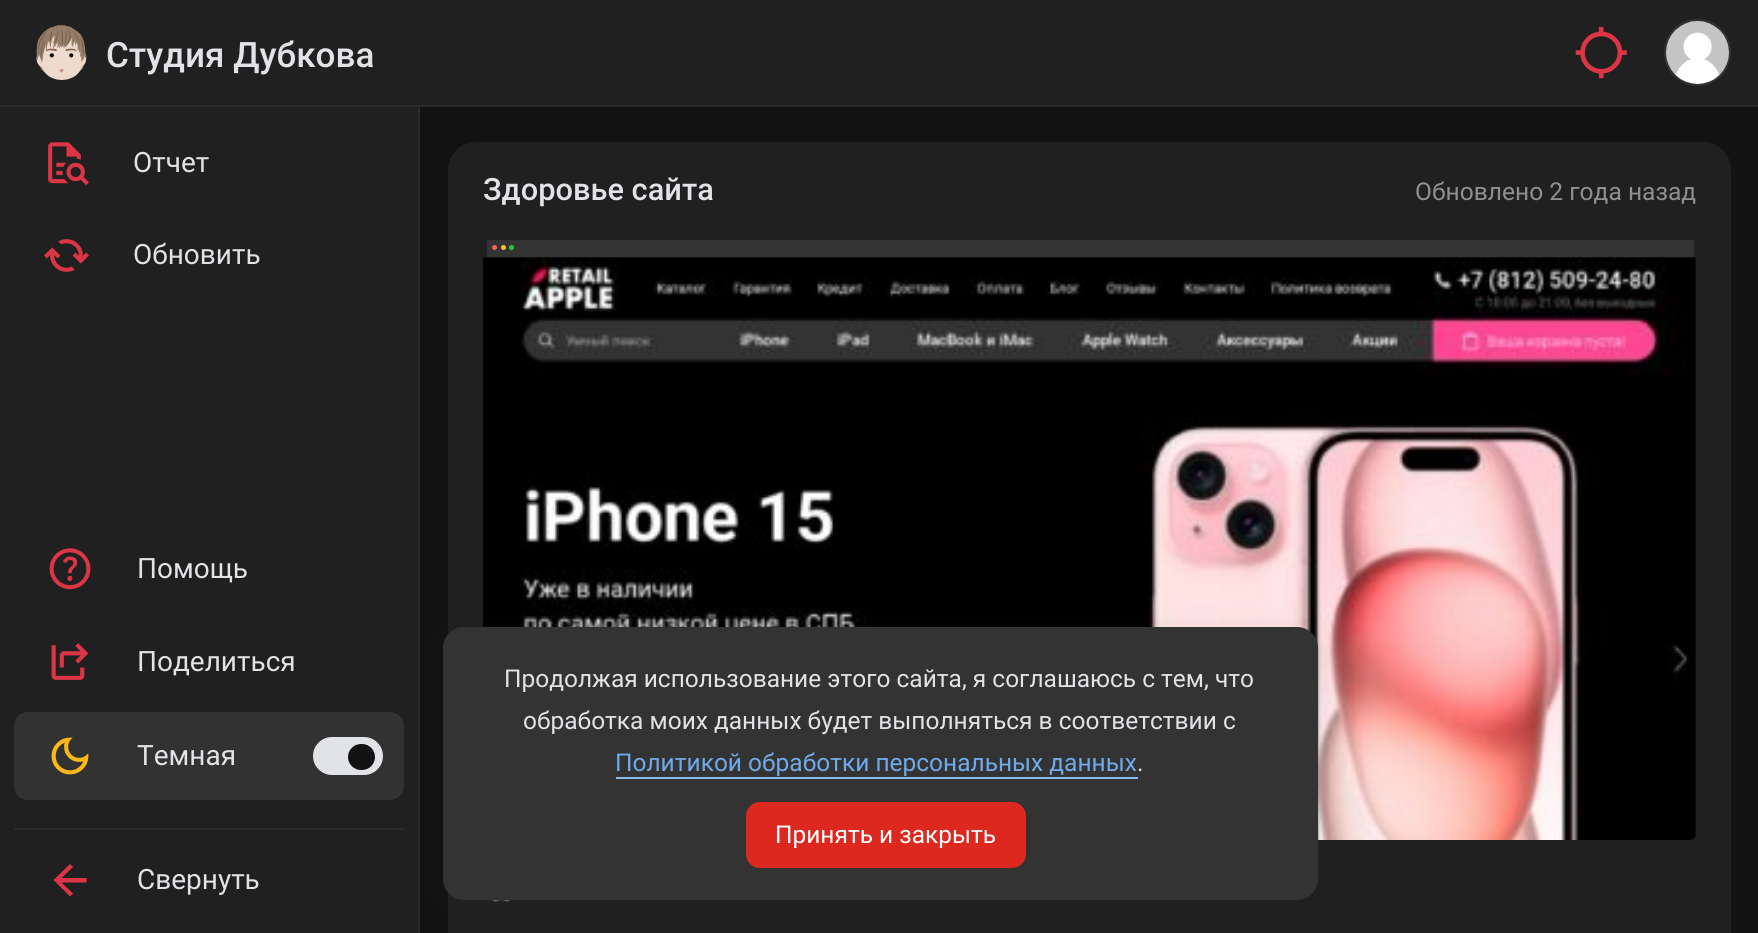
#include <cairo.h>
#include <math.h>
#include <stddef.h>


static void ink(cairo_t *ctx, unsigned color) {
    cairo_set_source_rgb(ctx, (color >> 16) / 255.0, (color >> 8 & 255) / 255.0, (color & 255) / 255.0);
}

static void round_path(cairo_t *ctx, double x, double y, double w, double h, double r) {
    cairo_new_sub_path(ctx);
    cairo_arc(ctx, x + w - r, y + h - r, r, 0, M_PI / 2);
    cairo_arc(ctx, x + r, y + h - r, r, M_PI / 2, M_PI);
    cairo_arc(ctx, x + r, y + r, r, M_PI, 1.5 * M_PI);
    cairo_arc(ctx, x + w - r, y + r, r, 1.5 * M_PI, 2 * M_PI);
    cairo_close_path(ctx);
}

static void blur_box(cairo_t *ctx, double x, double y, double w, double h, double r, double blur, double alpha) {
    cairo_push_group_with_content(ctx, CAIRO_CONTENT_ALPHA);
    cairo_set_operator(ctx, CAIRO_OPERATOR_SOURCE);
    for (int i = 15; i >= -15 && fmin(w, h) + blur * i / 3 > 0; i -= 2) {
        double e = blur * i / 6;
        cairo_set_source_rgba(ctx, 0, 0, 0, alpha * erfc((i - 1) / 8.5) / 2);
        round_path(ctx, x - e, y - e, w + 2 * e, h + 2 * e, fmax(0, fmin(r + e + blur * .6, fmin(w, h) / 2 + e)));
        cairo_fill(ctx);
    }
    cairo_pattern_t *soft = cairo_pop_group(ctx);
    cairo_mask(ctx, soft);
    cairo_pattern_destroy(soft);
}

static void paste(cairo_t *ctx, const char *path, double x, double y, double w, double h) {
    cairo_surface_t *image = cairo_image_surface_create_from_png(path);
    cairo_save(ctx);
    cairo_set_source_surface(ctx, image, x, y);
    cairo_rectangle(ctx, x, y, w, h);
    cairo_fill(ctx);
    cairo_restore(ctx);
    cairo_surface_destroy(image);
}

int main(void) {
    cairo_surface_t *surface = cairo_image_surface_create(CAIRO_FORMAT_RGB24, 1758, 933);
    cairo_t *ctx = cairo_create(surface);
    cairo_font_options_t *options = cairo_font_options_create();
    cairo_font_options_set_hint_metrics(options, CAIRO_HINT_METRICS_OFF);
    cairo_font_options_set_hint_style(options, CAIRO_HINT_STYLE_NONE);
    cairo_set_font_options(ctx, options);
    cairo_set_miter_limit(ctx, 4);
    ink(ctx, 0x121212);
    cairo_paint(ctx);
    ink(ctx, 0x202020);
    cairo_rectangle(ctx, 0, 0, 1758, 105);
    cairo_fill(ctx);
    ink(ctx, 0x2A2A2A);
    cairo_rectangle(ctx, 0, 105, 1758, 2);
    cairo_fill(ctx);
    paste(ctx, "media/1.png", 36, 25, 51, 55);
    cairo_select_font_face(ctx, "Roboto Medium", CAIRO_FONT_SLANT_NORMAL, CAIRO_FONT_WEIGHT_NORMAL);
    cairo_set_font_size(ctx, 35);
    ink(ctx, 0xE1E3E6);
    cairo_move_to(ctx, 106, 67);
    cairo_show_text(ctx, "Студия Дубкова");
    paste(ctx, "media/2.png", 1575, 27, 52, 52);
    ink(ctx, 0x333333);
    cairo_arc(ctx, 1697.5, 52.5, 32.5, 0, 2 * M_PI);
    cairo_fill_preserve(ctx);
    cairo_stroke(ctx);
    paste(ctx, "media/3.png", 1666, 21, 63, 63);
    ink(ctx, 0x202020);
    cairo_rectangle(ctx, 0, 107, 418, 826);
    cairo_fill(ctx);
    ink(ctx, 0x2A2A2A);
    cairo_rectangle(ctx, 418, 107, 2, 826);
    cairo_fill(ctx);
    paste(ctx, "media/4.png", 48, 142, 41, 44);
    cairo_select_font_face(ctx, "Roboto", CAIRO_FONT_SLANT_NORMAL, CAIRO_FONT_WEIGHT_NORMAL);
    cairo_set_font_size(ctx, 28);
    ink(ctx, 0xE1E3E6);
    cairo_move_to(ctx, 133, 172);
    cairo_show_text(ctx, "Отчет");
    paste(ctx, "media/5.png", 44, 239, 45, 33);
    cairo_move_to(ctx, 133, 264);
    cairo_show_text(ctx, "Обновить");
    paste(ctx, "media/6.png", 49, 548, 42, 42);
    cairo_move_to(ctx, 137, 578);
    cairo_show_text(ctx, "Помощь");
    paste(ctx, "media/7.png", 51, 643, 38, 37);
    cairo_move_to(ctx, 137, 671);
    cairo_show_text(ctx, "Поделиться");
    ink(ctx, 0x323232);
    round_path(ctx, 14, 712, 390, 88, 14);
    cairo_fill(ctx);
    paste(ctx, "media/8.png", 51, 737, 38, 38);
    ink(ctx, 0xE1E3E6);
    cairo_move_to(ctx, 137, 765);
    cairo_show_text(ctx, "Темная");
    round_path(ctx, 313, 737, 70, 38, 19);
    cairo_fill(ctx);
    ink(ctx, 0x121212);
    round_path(ctx, 348, 744, 27, 26, 13);
    cairo_fill(ctx);
    ink(ctx, 0x2A2A2A);
    cairo_rectangle(ctx, 14, 828, 390, 2);
    cairo_fill(ctx);
    ink(ctx, 0xDC3545);
    cairo_new_path(ctx);
    cairo_move_to(ctx, 61.5, 882.5);
    cairo_line_to(ctx, 73, 893.5);
    cairo_line_to(ctx, 70, 896.5);
    cairo_line_to(ctx, 53.5, 880);
    cairo_line_to(ctx, 70, 864);
    cairo_line_to(ctx, 73, 867);
    cairo_line_to(ctx, 61.5, 878);
    cairo_line_to(ctx, 86.5, 878);
    cairo_line_to(ctx, 86.5, 882.5);
    cairo_close_path(ctx);
    cairo_fill(ctx);
    ink(ctx, 0xE1E3E6);
    cairo_move_to(ctx, 137, 889);
    cairo_show_text(ctx, "Свернуть");
    ink(ctx, 0x202020);
    cairo_new_path(ctx);
    cairo_move_to(ctx, 476, 142);
    cairo_line_to(ctx, 1703, 142);
    cairo_curve_to(ctx, 1718.5, 142, 1731, 154.5, 1731, 170);
    cairo_line_to(ctx, 1731, 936);
    cairo_line_to(ctx, 448, 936);
    cairo_line_to(ctx, 448, 170);
    cairo_curve_to(ctx, 448, 154.5, 460.5, 142, 476, 142);
    cairo_close_path(ctx);
    cairo_fill(ctx);
    cairo_select_font_face(ctx, "Roboto Medium", CAIRO_FONT_SLANT_NORMAL, CAIRO_FONT_WEIGHT_NORMAL);
    cairo_set_font_size(ctx, 30.75);
    ink(ctx, 0xE1E3E6);
    cairo_move_to(ctx, 483, 200);
    cairo_show_text(ctx, "Здоровье сайта");
    cairo_select_font_face(ctx, "Roboto", CAIRO_FONT_SLANT_NORMAL, CAIRO_FONT_WEIGHT_NORMAL);
    cairo_set_font_size(ctx, 24.6);
    ink(ctx, 0x909090);
    cairo_move_to(ctx, 1415, 200);
    cairo_show_text(ctx, "Обновлено 2 года назад");
    ink(ctx, 0x333333);
    cairo_rectangle(ctx, 487, 240, 1207, 17);
    cairo_fill(ctx);
    ink(ctx, 0x2BC840);
    cairo_arc(ctx, 511.5, 247.5, 2.5, 0, 2 * M_PI);
    cairo_fill(ctx);
    ink(ctx, 0xFFBD2E);
    cairo_arc(ctx, 503.5, 247.5, 2.5, 0, 2 * M_PI);
    cairo_fill(ctx);
    cairo_arc(ctx, 494.5, 247.5, 1.5, 0, 2 * M_PI);
    ink(ctx, 0xFF5F57);
    cairo_stroke(ctx);
    cairo_arc(ctx, 495, 248, 1, 0, 2 * M_PI);
    cairo_fill(ctx);
    paste(ctx, "media/9.png", 483, 257, 1213, 583);
    paste(ctx, "media/10.png", 491, 900, 20, 2);
    ink(ctx, 0x292C38);
    blur_box(ctx, 452, 641, 857, 255, 12, 17.5, 0.2);
    ink(ctx, 0x333333);
    round_path(ctx, 443, 627, 875, 273, 21);
    cairo_fill(ctx);
    cairo_set_font_size(ctx, 24.5);
    ink(ctx, 0xE1E3E6);
    cairo_move_to(ctx, 504, 687);
    cairo_show_text(ctx, "Продолжая использование этого сайта, я соглашаюсь с тем, что");
    cairo_move_to(ctx, 523, 729);
    cairo_show_text(ctx, "обработка моих данных будет выполняться в соответствии с");
    ink(ctx, 0x71AAEB);
    cairo_move_to(ctx, 615, 771);
    cairo_show_text(ctx, "Политикой обработки персональных данных");
    ink(ctx, 0x8DBBEF);
    cairo_rectangle(ctx, 616, 777, 522, 2);
    cairo_fill(ctx);
    ink(ctx, 0xE1E3E6);
    cairo_move_to(ctx, 1137, 771);
    cairo_show_text(ctx, ".");
    ink(ctx, 0xDC281E);
    round_path(ctx, 746, 802, 280, 66, 14);
    cairo_fill(ctx);
    ink(ctx, 0xFFFFFF);
    cairo_move_to(ctx, 775, 843);
    cairo_show_text(ctx, "Принять и закрыть");
    cairo_surface_write_to_png(surface, "image.png");
    cairo_font_options_destroy(options);
    cairo_destroy(ctx);
    cairo_surface_destroy(surface);
    return 0;
}
